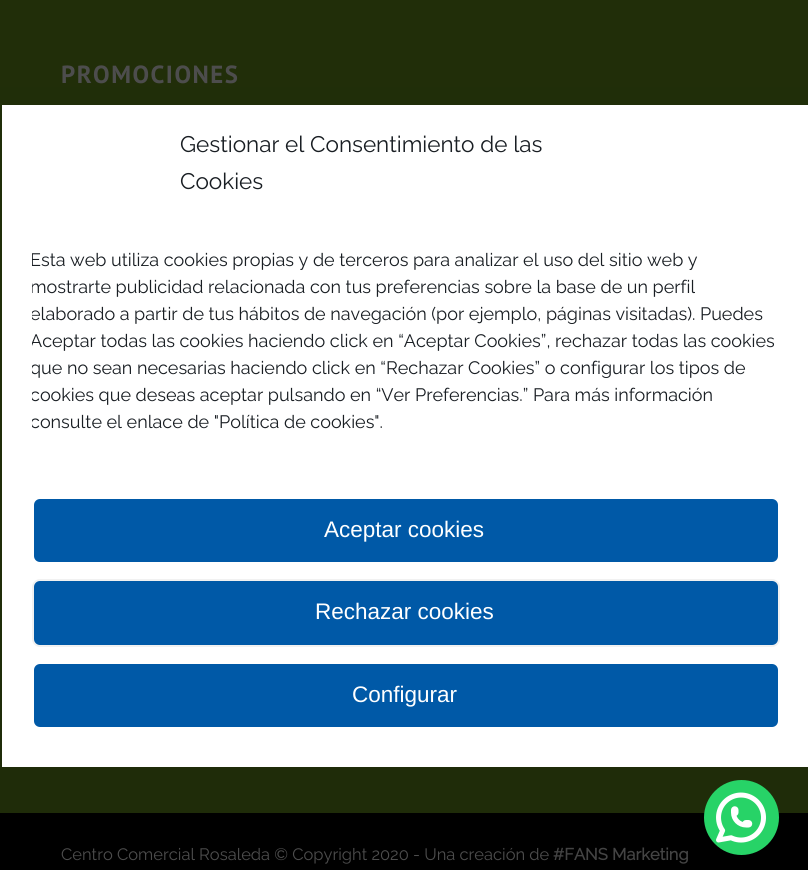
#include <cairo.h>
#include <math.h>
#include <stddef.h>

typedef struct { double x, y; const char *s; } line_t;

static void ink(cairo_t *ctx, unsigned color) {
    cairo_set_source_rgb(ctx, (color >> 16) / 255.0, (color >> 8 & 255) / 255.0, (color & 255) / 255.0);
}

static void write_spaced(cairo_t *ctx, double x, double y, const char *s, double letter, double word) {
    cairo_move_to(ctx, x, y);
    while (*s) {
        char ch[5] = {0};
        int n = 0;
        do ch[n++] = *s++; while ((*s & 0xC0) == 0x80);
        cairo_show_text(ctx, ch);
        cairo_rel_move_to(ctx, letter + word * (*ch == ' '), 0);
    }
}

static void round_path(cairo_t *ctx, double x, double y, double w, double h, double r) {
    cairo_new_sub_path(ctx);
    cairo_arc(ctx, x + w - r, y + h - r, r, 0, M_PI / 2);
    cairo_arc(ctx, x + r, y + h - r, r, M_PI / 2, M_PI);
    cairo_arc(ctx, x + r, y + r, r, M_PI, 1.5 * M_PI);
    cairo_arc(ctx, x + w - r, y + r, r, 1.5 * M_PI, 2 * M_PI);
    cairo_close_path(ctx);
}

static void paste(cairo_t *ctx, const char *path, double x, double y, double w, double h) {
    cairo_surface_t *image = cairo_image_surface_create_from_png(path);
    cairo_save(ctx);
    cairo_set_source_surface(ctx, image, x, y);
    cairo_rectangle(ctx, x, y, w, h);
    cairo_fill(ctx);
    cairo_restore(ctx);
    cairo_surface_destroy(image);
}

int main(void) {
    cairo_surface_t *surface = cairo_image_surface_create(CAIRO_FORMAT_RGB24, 808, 870);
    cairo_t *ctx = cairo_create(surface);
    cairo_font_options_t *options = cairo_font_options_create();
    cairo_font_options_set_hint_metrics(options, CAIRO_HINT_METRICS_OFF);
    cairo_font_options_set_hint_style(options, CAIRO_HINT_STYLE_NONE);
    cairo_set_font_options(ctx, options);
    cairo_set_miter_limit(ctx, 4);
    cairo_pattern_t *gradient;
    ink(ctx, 0xFFFFFF);
    cairo_paint(ctx);
    gradient = cairo_pattern_create_linear(404, -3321, 404, 815);
    cairo_pattern_add_color_stop_rgba(gradient, 0, 0.153, 0.22, 0.043, 1);
    cairo_pattern_add_color_stop_rgba(gradient, 1, 0.122, 0.173, 0.035, 1);
    cairo_set_source(ctx, gradient);
    cairo_pattern_destroy(gradient);
    cairo_rectangle(ctx, 0, 0, 808, 813);
    cairo_fill(ctx);
    cairo_select_font_face(ctx, "PT Sans", CAIRO_FONT_SLANT_NORMAL, CAIRO_FONT_WEIGHT_BOLD);
    cairo_set_font_size(ctx, 24.75);
    ink(ctx, 0x4D4D4D);
    write_spaced(ctx, 61, 83, "PROMOCIONES", 1.5, 0);
    ink(ctx, 0x000000);
    cairo_rectangle(ctx, 0, 813, 808, 57);
    cairo_fill(ctx);
    cairo_select_font_face(ctx, "Raleway Thin", CAIRO_FONT_SLANT_NORMAL, CAIRO_FONT_WEIGHT_NORMAL);
    cairo_set_font_size(ctx, 16.5);
    ink(ctx, 0x4D4D4D);
    cairo_move_to(ctx, 61, 860);
    cairo_show_text(ctx, "Centro Comercial Rosaleda © Copyright 2020 - Una creación de");
    cairo_select_font_face(ctx, "Raleway", CAIRO_FONT_SLANT_NORMAL, CAIRO_FONT_WEIGHT_BOLD);
    ink(ctx, 0x444444);
    cairo_move_to(ctx, 553, 860);
    cairo_show_text(ctx, "#FANS Marketing");
    ink(ctx, 0xFFFFFF);
    cairo_rectangle(ctx, 2, 105, 806, 662);
    cairo_fill(ctx);
    cairo_select_font_face(ctx, "Raleway Thin", CAIRO_FONT_SLANT_NORMAL, CAIRO_FONT_WEIGHT_NORMAL);
    cairo_set_font_size(ctx, 22.5);
    ink(ctx, 0x191E23);
    cairo_move_to(ctx, 180, 152);
    cairo_show_text(ctx, "Gestionar el Consentimiento de las");
    cairo_move_to(ctx, 180, 189);
    cairo_show_text(ctx, "Cookies");
    cairo_save(ctx);
    cairo_rectangle(ctx, 32, 233, 748, 219);
    cairo_clip(ctx);
    cairo_set_font_size(ctx, 18);
    {
        static const line_t items[] = {
            {30, 266, "Esta web utiliza cookies propias y de terceros para analizar el uso del sitio web y"},
            {30, 293, "mostrarte publicidad relacionada con tus preferencias sobre la base de un perfil"},
            {30, 320, "elaborado a partir de tus hábitos de navegación (por ejemplo, páginas visitadas). Puedes"},
            {30, 347, "Aceptar todas las cookies haciendo click en “Aceptar Cookies”, rechazar todas las cookies"},
            {30, 374, "que no sean necesarias haciendo click en “Rechazar Cookies” o configurar los tipos de"},
            {30, 401, "cookies que deseas aceptar pulsando en “Ver Preferencias.” Para más información"},
            {30, 428, "consulte el enlace de \""},
        };
        for (size_t i = 0; i < sizeof items / sizeof *items; i++) {
            cairo_move_to(ctx, items[i].x, items[i].y);
            cairo_show_text(ctx, items[i].s);
        }
    }
    cairo_restore(ctx);
    cairo_set_font_size(ctx, 18);
    cairo_move_to(ctx, 219, 428);
    cairo_show_text(ctx, "Política de cookies\".");
    ink(ctx, 0x0059A7);
    round_path(ctx, 33, 498, 746, 65, 7);
    cairo_fill_preserve(ctx);
    ink(ctx, 0xFFFFFF);
    cairo_stroke(ctx);
    cairo_select_font_face(ctx, "Liberation Sans", CAIRO_FONT_SLANT_NORMAL, CAIRO_FONT_WEIGHT_NORMAL);
    cairo_set_font_size(ctx, 22.5);
    cairo_move_to(ctx, 324, 537);
    cairo_show_text(ctx, "Aceptar cookies");
    ink(ctx, 0x0059A7);
    round_path(ctx, 33, 580, 746, 66, 7);
    cairo_fill_preserve(ctx);
    ink(ctx, 0xF1F1F1);
    cairo_stroke(ctx);
    ink(ctx, 0xFFFFFF);
    cairo_move_to(ctx, 315, 619);
    cairo_show_text(ctx, "Rechazar cookies");
    ink(ctx, 0x0059A7);
    round_path(ctx, 33, 663, 746, 65, 7);
    cairo_fill_preserve(ctx);
    ink(ctx, 0xFFFFFF);
    cairo_stroke(ctx);
    cairo_move_to(ctx, 352, 702);
    cairo_show_text(ctx, "Configurar");
    ink(ctx, 0x27D367);
    cairo_new_path(ctx);
    cairo_arc(ctx, 741.5, 817.5, 37.5, 0, 2 * M_PI);
    cairo_fill(ctx);
    paste(ctx, "media/1.png", 716, 792, 50, 51);
    cairo_surface_write_to_png(surface, "image.png");
    cairo_font_options_destroy(options);
    cairo_destroy(ctx);
    cairo_surface_destroy(surface);
    return 0;
}
